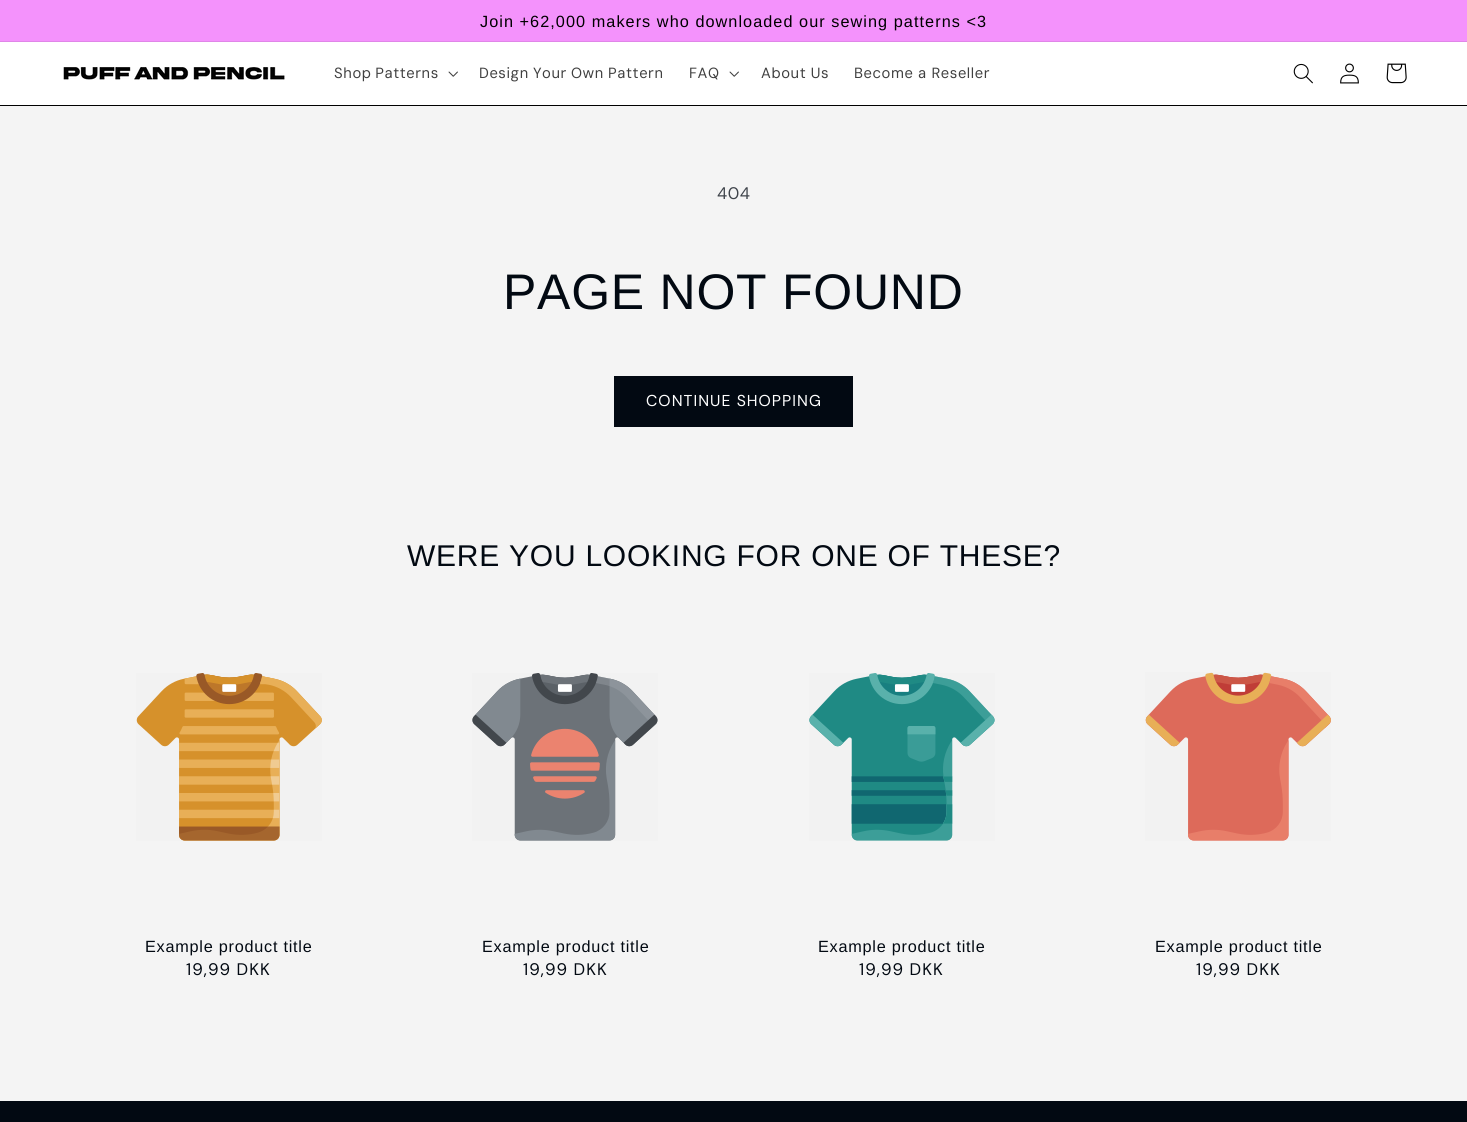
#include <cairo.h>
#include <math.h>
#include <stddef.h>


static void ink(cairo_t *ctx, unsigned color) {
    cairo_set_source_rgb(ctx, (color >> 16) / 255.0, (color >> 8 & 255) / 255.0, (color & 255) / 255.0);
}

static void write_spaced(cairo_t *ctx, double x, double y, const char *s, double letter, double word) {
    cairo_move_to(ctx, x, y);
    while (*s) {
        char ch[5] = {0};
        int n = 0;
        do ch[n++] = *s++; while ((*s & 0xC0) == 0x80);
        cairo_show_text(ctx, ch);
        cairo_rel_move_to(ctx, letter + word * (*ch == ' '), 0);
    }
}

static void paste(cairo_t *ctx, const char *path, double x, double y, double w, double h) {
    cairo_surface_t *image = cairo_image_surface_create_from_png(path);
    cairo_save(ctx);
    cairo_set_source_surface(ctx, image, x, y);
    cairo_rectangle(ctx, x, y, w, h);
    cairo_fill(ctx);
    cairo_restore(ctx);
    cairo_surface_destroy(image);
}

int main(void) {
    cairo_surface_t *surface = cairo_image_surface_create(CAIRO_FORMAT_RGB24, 1467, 1122);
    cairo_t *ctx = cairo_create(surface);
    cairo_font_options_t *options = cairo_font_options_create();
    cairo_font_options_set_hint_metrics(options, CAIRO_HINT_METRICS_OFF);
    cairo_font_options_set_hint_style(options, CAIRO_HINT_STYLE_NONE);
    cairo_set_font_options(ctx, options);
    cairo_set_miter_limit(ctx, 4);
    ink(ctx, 0xF4F4F4);
    cairo_paint(ctx);
    ink(ctx, 0xF492FC);
    cairo_rectangle(ctx, 0, 0, 1467, 41);
    cairo_fill(ctx);
    ink(ctx, 0xE086E8);
    cairo_rectangle(ctx, 0, 41, 1467, 1);
    cairo_fill(ctx);
    cairo_select_font_face(ctx, "Liberation Sans", CAIRO_FONT_SLANT_NORMAL, CAIRO_FONT_WEIGHT_NORMAL);
    cairo_set_font_size(ctx, 16.25);
    ink(ctx, 0x000000);
    write_spaced(ctx, 480, 27, "Join +62,000 makers who downloaded our sewing patterns <3", 1.05, 0);
    cairo_rectangle(ctx, 0, 105, 1467, 1);
    cairo_fill(ctx);
    ink(ctx, 0xFFFFFF);
    cairo_rectangle(ctx, 0, 42, 1467, 63);
    cairo_fill(ctx);
    paste(ctx, "media/1.png", 63, 67, 222, 13);
    cairo_select_font_face(ctx, "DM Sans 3", CAIRO_FONT_SLANT_NORMAL, CAIRO_FONT_WEIGHT_NORMAL);
    cairo_set_font_size(ctx, 14.75);
    ink(ctx, 0x404040);
    write_spaced(ctx, 334, 78, "Shop Patterns", 0.6, -1);
    paste(ctx, "media/2.png", 448, 71, 10, 6);
    write_spaced(ctx, 479, 78, "Design Your Own Pattern", 0.6, -0.5);
    write_spaced(ctx, 689, 78, "FAQ", 0.6, 0);
    paste(ctx, "media/2.png", 729, 71, 10, 6);
    write_spaced(ctx, 761, 78, "About Us", 0.6, 0);
    write_spaced(ctx, 854, 78, "Become a Reseller", 0.6, 0);
    paste(ctx, "media/3.png", 1293, 63, 20, 21);
    paste(ctx, "media/4.png", 1340, 63, 19, 21);
    paste(ctx, "media/5.png", 1386, 63, 21, 21);
    cairo_select_font_face(ctx, "DM Sans", CAIRO_FONT_SLANT_NORMAL, CAIRO_FONT_WEIGHT_NORMAL);
    cairo_set_font_size(ctx, 16.75);
    ink(ctx, 0x3F444B);
    write_spaced(ctx, 717, 199, "404", 0.6, 0);
    cairo_select_font_face(ctx, "Liberation Sans", CAIRO_FONT_SLANT_NORMAL, CAIRO_FONT_WEIGHT_NORMAL);
    cairo_set_font_size(ctx, 50);
    ink(ctx, 0x020912);
    write_spaced(ctx, 503, 309, "PAGE NOT FOUND", 0.75, 0);
    cairo_rectangle(ctx, 614, 376, 239, 51);
    cairo_fill(ctx);
    cairo_select_font_face(ctx, "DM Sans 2", CAIRO_FONT_SLANT_NORMAL, CAIRO_FONT_WEIGHT_NORMAL);
    cairo_set_font_size(ctx, 15.75);
    ink(ctx, 0xFFFFFF);
    write_spaced(ctx, 646, 406, "CONTINUE SHOPPING", 1.05, 0);
    cairo_select_font_face(ctx, "Liberation Sans", CAIRO_FONT_SLANT_NORMAL, CAIRO_FONT_WEIGHT_NORMAL);
    cairo_set_font_size(ctx, 30);
    ink(ctx, 0x020912);
    write_spaced(ctx, 407, 566, "WERE YOU LOOKING FOR ONE OF THESE?", 0.75, 0);
    paste(ctx, "media/6.png", 136, 673, 186, 168);
    cairo_set_font_size(ctx, 16.25);
    write_spaced(ctx, 145, 952, "Example product title", 0.75, 0);
    cairo_select_font_face(ctx, "DM Sans", CAIRO_FONT_SLANT_NORMAL, CAIRO_FONT_WEIGHT_NORMAL);
    cairo_set_font_size(ctx, 16.75);
    write_spaced(ctx, 186, 975, "19,99 DKK", 1.05, 0);
    paste(ctx, "media/7.png", 472, 673, 186, 168);
    cairo_select_font_face(ctx, "Liberation Sans", CAIRO_FONT_SLANT_NORMAL, CAIRO_FONT_WEIGHT_NORMAL);
    cairo_set_font_size(ctx, 16.25);
    write_spaced(ctx, 482, 952, "Example product title", 0.75, 0);
    cairo_select_font_face(ctx, "DM Sans", CAIRO_FONT_SLANT_NORMAL, CAIRO_FONT_WEIGHT_NORMAL);
    cairo_set_font_size(ctx, 16.75);
    write_spaced(ctx, 523, 975, "19,99 DKK", 1.05, 0);
    paste(ctx, "media/8.png", 809, 673, 186, 168);
    cairo_select_font_face(ctx, "Liberation Sans", CAIRO_FONT_SLANT_NORMAL, CAIRO_FONT_WEIGHT_NORMAL);
    cairo_set_font_size(ctx, 16.25);
    write_spaced(ctx, 818, 952, "Example product title", 0.75, 0);
    cairo_select_font_face(ctx, "DM Sans", CAIRO_FONT_SLANT_NORMAL, CAIRO_FONT_WEIGHT_NORMAL);
    cairo_set_font_size(ctx, 16.75);
    write_spaced(ctx, 859, 975, "19,99 DKK", 1.05, 0);
    paste(ctx, "media/9.png", 1145, 672, 186, 169);
    cairo_select_font_face(ctx, "Liberation Sans", CAIRO_FONT_SLANT_NORMAL, CAIRO_FONT_WEIGHT_NORMAL);
    cairo_set_font_size(ctx, 16.25);
    write_spaced(ctx, 1155, 952, "Example product title", 0.75, 0);
    cairo_select_font_face(ctx, "DM Sans", CAIRO_FONT_SLANT_NORMAL, CAIRO_FONT_WEIGHT_NORMAL);
    cairo_set_font_size(ctx, 16.75);
    write_spaced(ctx, 1196, 975, "19,99 DKK", 1.05, 0);
    cairo_rectangle(ctx, 0, 1101, 1467, 21);
    cairo_fill(ctx);
    cairo_surface_write_to_png(surface, "image.png");
    cairo_font_options_destroy(options);
    cairo_destroy(ctx);
    cairo_surface_destroy(surface);
    return 0;
}
